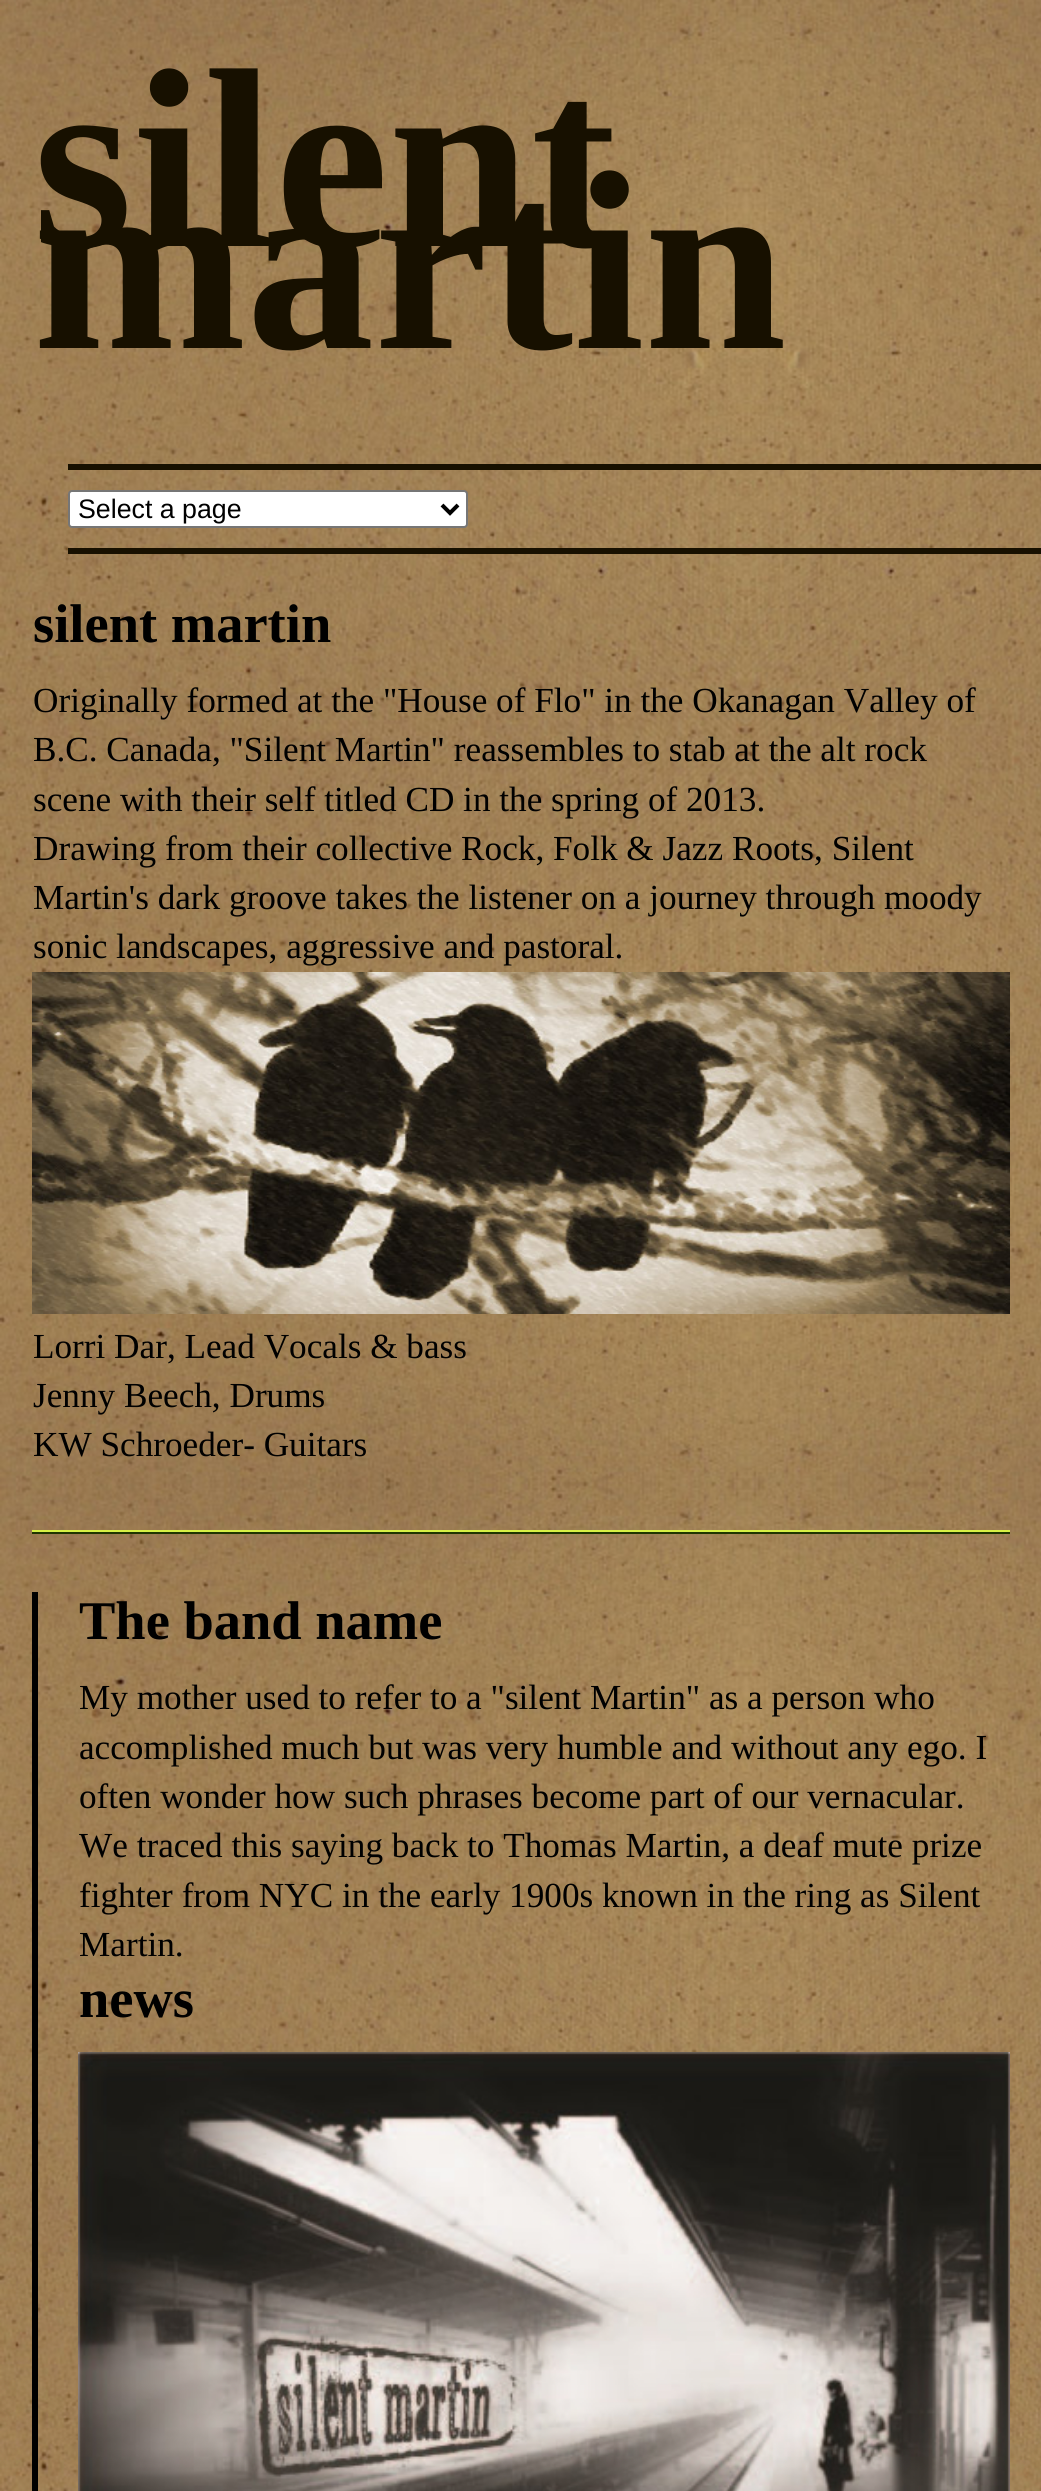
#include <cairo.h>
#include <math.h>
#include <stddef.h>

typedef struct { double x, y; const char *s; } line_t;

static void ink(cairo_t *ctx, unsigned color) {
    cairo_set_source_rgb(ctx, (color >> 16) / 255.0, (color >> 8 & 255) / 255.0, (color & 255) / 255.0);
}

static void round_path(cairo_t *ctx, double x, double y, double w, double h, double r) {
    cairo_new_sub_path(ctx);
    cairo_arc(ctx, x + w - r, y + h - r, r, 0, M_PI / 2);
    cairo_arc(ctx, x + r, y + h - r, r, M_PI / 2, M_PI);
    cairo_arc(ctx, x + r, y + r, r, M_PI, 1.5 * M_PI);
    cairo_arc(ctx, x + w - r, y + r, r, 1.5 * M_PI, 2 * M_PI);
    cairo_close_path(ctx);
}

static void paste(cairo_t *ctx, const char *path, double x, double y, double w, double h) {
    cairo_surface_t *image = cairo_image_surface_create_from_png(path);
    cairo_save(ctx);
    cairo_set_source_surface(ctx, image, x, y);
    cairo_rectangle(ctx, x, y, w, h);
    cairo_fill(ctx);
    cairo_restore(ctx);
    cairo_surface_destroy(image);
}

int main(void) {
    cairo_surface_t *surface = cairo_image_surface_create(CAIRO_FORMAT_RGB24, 1041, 2491);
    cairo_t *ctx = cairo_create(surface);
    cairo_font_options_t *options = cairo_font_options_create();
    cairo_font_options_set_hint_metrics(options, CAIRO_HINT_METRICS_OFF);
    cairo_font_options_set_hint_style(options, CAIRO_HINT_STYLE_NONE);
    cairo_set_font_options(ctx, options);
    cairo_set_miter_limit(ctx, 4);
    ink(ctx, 0xFFFFFF);
    cairo_paint(ctx);
    paste(ctx, "media/1.png", 0, 0, 1041, 2491);
    cairo_select_font_face(ctx, "Liberation Serif", CAIRO_FONT_SLANT_NORMAL, CAIRO_FONT_WEIGHT_BOLD);
    cairo_set_font_size(ctx, 256);
    ink(ctx, 0x171000);
    cairo_move_to(ctx, 33, 246);
    cairo_show_text(ctx, "silent");
    cairo_move_to(ctx, 33, 348);
    cairo_show_text(ctx, "martin");
    cairo_rectangle(ctx, 68, 464, 973, 6);
    cairo_fill(ctx);
    cairo_rectangle(ctx, 68, 548, 973, 6);
    cairo_fill(ctx);
    ink(ctx, 0xFFFFFF);
    round_path(ctx, 69, 491, 398, 36, 3);
    cairo_fill_preserve(ctx);
    ink(ctx, 0x767676);
    cairo_stroke(ctx);
    cairo_new_path(ctx);
    cairo_move_to(ctx, 442, 505);
    cairo_line_to(ctx, 450, 513);
    cairo_line_to(ctx, 458, 505);
    ink(ctx, 0x000000);
    cairo_set_line_width(ctx, 4);
    cairo_stroke(ctx);
    cairo_select_font_face(ctx, "Liberation Sans", CAIRO_FONT_SLANT_NORMAL, CAIRO_FONT_WEIGHT_NORMAL);
    cairo_set_font_size(ctx, 26.75);
    cairo_move_to(ctx, 78, 518);
    cairo_show_text(ctx, "Select a page");
    ink(ctx, 0x1E3500);
    cairo_rectangle(ctx, 32, 1532, 978, 2);
    cairo_fill(ctx);
    ink(ctx, 0xD7F145);
    cairo_rectangle(ctx, 32, 1530, 978, 2);
    cairo_fill(ctx);
    cairo_select_font_face(ctx, "Liberation Serif", CAIRO_FONT_SLANT_NORMAL, CAIRO_FONT_WEIGHT_BOLD);
    cairo_set_font_size(ctx, 54.5);
    ink(ctx, 0x000000);
    cairo_move_to(ctx, 33, 642);
    cairo_show_text(ctx, "silent martin");
    cairo_select_font_face(ctx, "Liberation Serif", CAIRO_FONT_SLANT_NORMAL, CAIRO_FONT_WEIGHT_NORMAL);
    cairo_set_font_size(ctx, 35.2);
    {
        static const line_t items[] = {
            {33, 712, "Originally formed at the \"House of Flo\" in the Okanagan Valley of"},
            {33, 761, "B.C. Canada, \"Silent Martin\" reassembles to stab at the alt rock"},
            {33, 811, "scene with their self titled CD in the spring of 2013."},
            {33, 860, "Drawing from their collective Rock, Folk & Jazz Roots, Silent"},
            {33, 909, "Martin's dark groove takes the listener on a journey through moody"},
            {33, 958, "sonic landscapes, aggressive and pastoral."},
        };
        for (size_t i = 0; i < sizeof items / sizeof *items; i++) {
            cairo_move_to(ctx, items[i].x, items[i].y);
            cairo_show_text(ctx, items[i].s);
        }
    }
    paste(ctx, "media/2.png", 32, 972, 978, 342);
    {
        static const line_t items[] = {
            {33, 1358, "Lorri Dar, Lead Vocals & bass"},
            {33, 1407, "Jenny Beech, Drums"},
            {33, 1456, "KW Schroeder- Guitars"},
        };
        for (size_t i = 0; i < sizeof items / sizeof *items; i++) {
            cairo_move_to(ctx, items[i].x, items[i].y);
            cairo_show_text(ctx, items[i].s);
        }
    }
    cairo_rectangle(ctx, 32, 1592, 6, 899);
    cairo_fill(ctx);
    cairo_select_font_face(ctx, "Liberation Serif", CAIRO_FONT_SLANT_NORMAL, CAIRO_FONT_WEIGHT_BOLD);
    cairo_set_font_size(ctx, 54.5);
    cairo_move_to(ctx, 79, 1639);
    cairo_show_text(ctx, "The band name");
    cairo_select_font_face(ctx, "Liberation Serif", CAIRO_FONT_SLANT_NORMAL, CAIRO_FONT_WEIGHT_NORMAL);
    cairo_set_font_size(ctx, 35.2);
    {
        static const line_t items[] = {
            {79, 1709, "My mother used to refer to a \"silent Martin\" as a person who"},
            {79, 1759, "accomplished much but was very humble and without any ego. I"},
            {79, 1808, "often wonder how such phrases become part of our vernacular."},
            {79, 1857, "We traced this saying back to Thomas Martin, a deaf mute prize"},
            {79, 1907, "fighter from NYC in the early 1900s known in the ring as Silent"},
            {79, 1956, "Martin."},
        };
        for (size_t i = 0; i < sizeof items / sizeof *items; i++) {
            cairo_move_to(ctx, items[i].x, items[i].y);
            cairo_show_text(ctx, items[i].s);
        }
    }
    cairo_select_font_face(ctx, "Liberation Serif", CAIRO_FONT_SLANT_NORMAL, CAIRO_FONT_WEIGHT_BOLD);
    cairo_set_font_size(ctx, 54.5);
    cairo_move_to(ctx, 79, 2017);
    cairo_show_text(ctx, "news");
    paste(ctx, "media/3.png", 78, 2052, 932, 439);
    cairo_surface_write_to_png(surface, "image.png");
    cairo_font_options_destroy(options);
    cairo_destroy(ctx);
    cairo_surface_destroy(surface);
    return 0;
}
